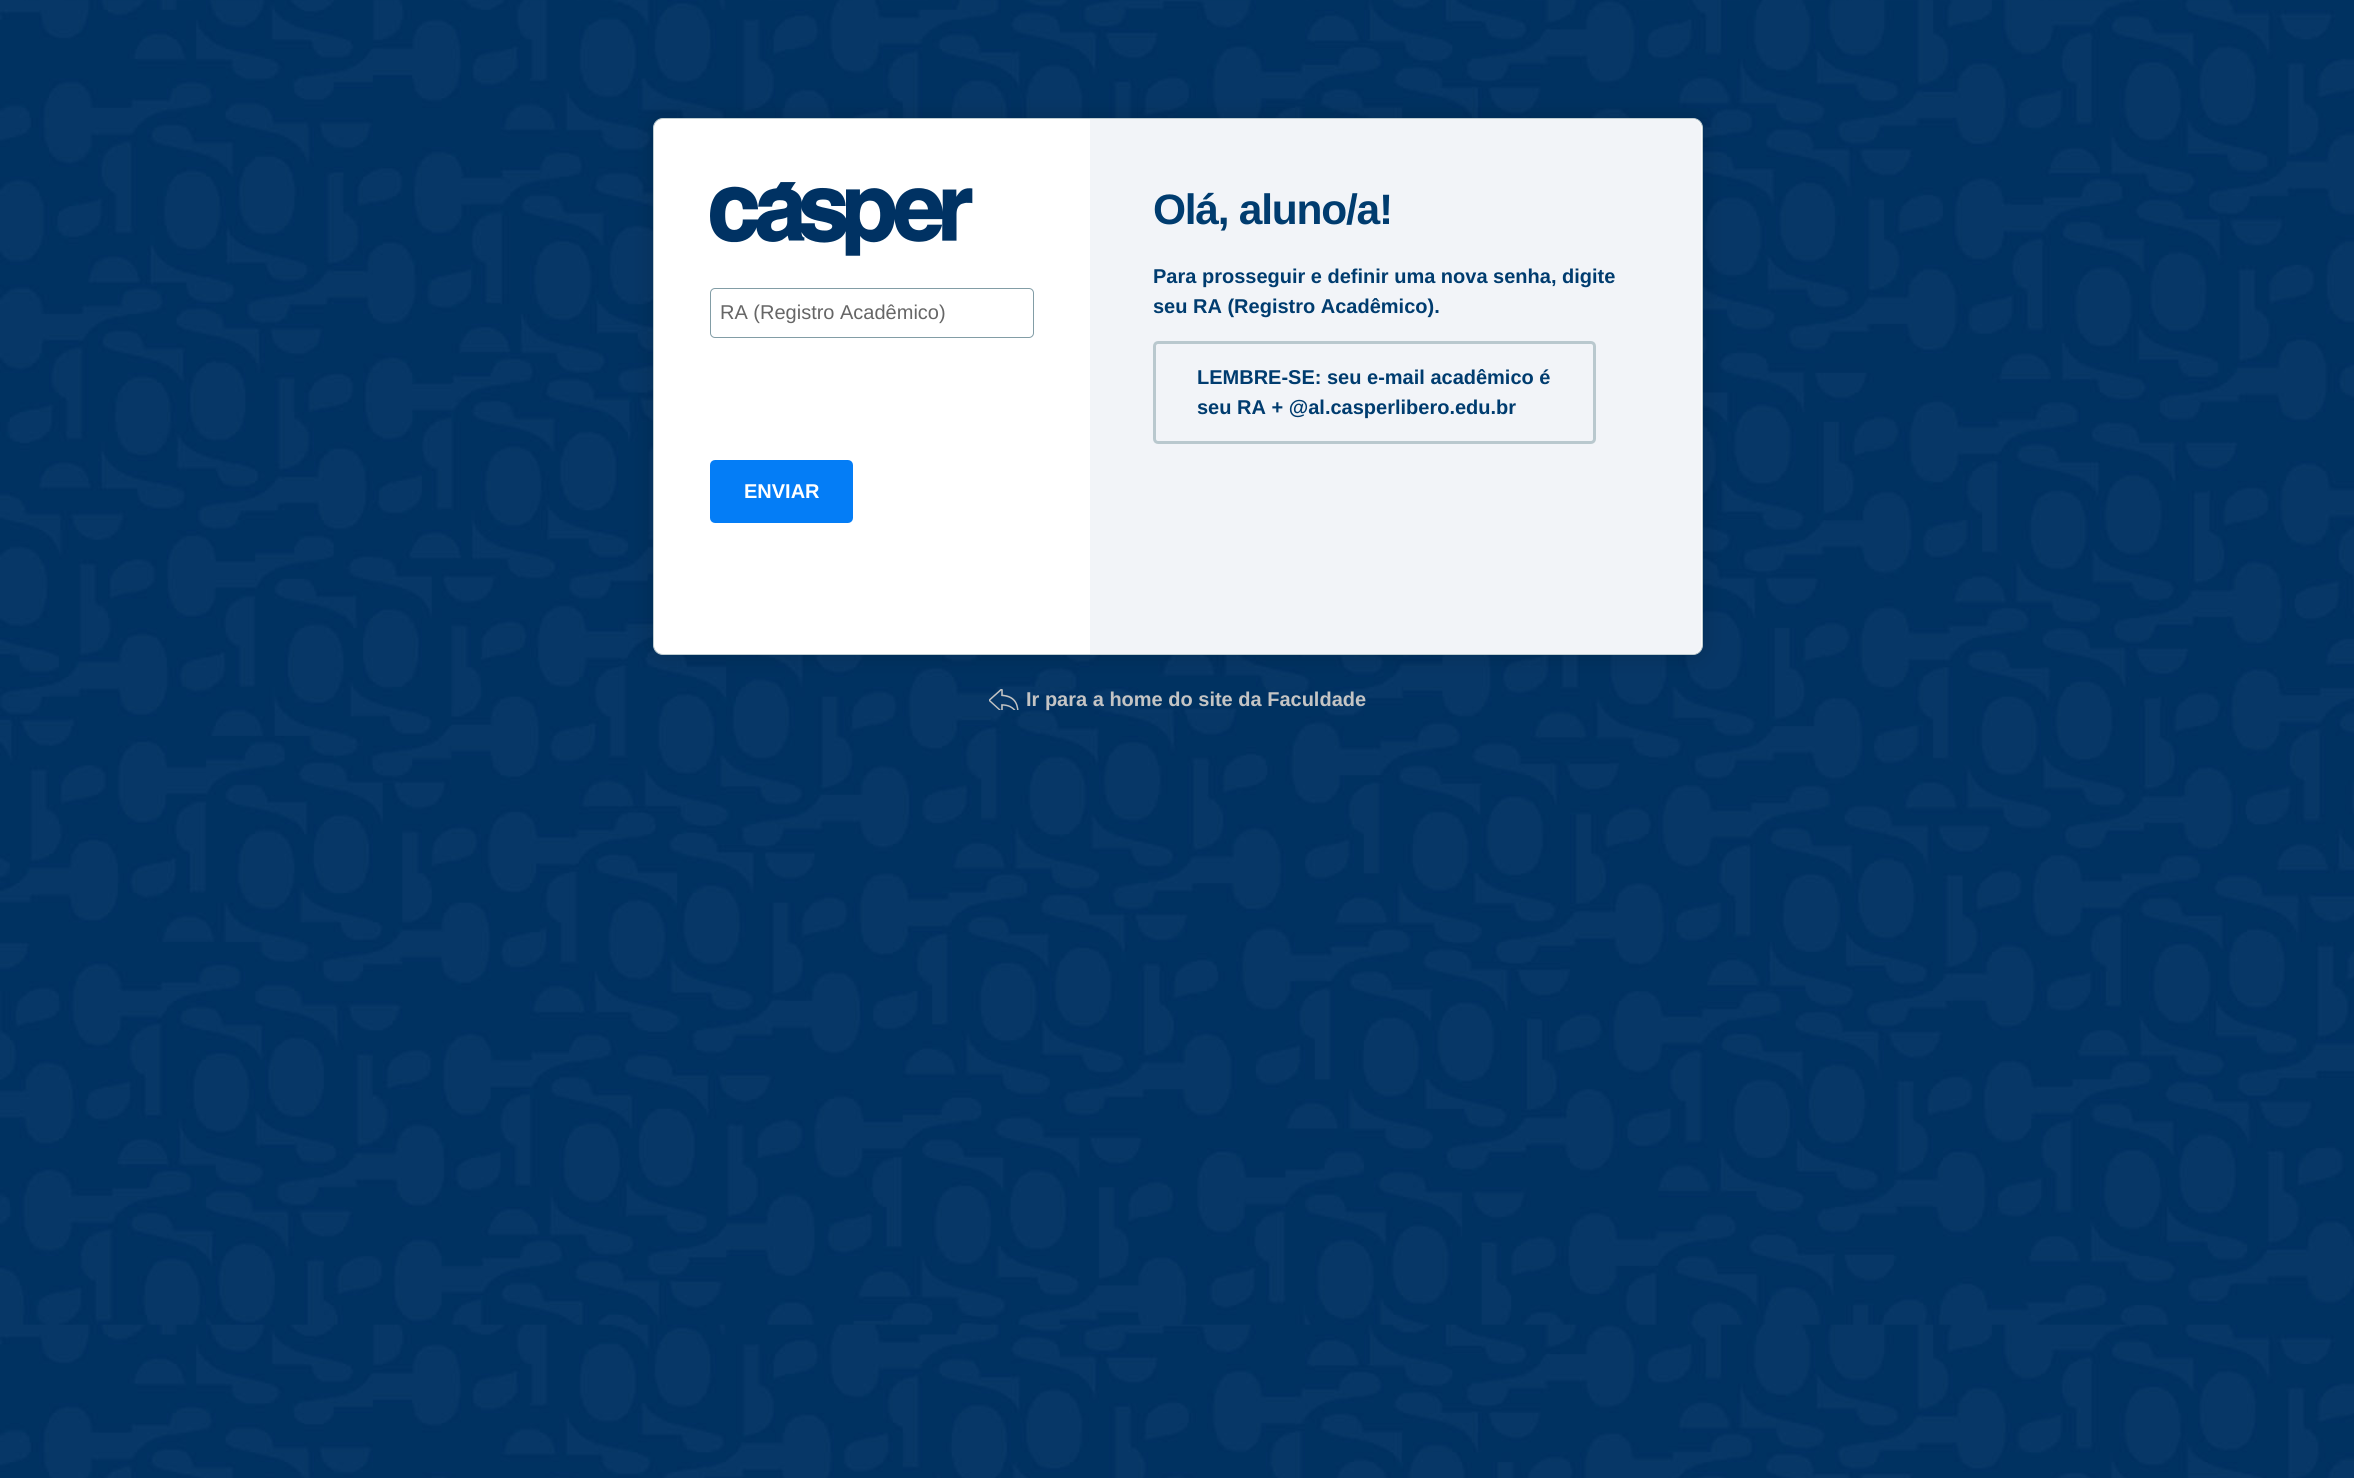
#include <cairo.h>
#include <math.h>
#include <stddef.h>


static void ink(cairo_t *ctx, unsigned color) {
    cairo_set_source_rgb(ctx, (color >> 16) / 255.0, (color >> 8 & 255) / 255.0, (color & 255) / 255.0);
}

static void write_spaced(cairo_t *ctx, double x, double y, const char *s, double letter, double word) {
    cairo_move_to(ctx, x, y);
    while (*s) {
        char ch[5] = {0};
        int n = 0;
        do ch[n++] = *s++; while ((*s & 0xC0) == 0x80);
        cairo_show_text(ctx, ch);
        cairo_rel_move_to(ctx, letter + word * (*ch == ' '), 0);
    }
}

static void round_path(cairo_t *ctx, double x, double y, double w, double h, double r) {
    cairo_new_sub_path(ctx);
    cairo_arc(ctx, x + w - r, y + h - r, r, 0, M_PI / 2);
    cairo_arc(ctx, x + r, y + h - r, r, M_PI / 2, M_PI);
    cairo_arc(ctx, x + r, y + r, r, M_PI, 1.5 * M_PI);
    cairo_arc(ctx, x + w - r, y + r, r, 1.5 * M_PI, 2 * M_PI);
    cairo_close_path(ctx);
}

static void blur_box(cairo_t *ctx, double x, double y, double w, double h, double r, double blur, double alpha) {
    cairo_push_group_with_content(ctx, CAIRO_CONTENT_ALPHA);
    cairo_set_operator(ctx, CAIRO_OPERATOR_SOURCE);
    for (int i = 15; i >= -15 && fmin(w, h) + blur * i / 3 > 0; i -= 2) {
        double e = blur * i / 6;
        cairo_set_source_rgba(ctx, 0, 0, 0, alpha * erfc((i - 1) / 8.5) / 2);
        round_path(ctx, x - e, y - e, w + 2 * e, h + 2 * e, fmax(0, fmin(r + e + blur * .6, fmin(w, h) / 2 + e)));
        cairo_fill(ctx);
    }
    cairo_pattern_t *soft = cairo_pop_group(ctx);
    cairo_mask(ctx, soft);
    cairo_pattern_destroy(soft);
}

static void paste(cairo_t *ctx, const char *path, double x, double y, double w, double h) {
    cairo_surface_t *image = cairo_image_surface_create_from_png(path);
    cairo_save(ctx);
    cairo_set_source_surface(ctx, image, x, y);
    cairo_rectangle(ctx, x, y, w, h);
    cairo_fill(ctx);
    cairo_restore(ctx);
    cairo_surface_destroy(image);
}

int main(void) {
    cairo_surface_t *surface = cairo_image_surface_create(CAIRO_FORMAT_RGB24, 2354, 1478);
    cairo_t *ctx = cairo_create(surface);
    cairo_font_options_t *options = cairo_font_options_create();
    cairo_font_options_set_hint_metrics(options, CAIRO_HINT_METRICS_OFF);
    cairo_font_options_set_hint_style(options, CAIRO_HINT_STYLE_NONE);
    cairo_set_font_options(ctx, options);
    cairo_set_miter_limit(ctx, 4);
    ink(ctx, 0xFFFFFF);
    cairo_paint(ctx);
    paste(ctx, "media/1.png", 0, 0, 2354, 1478);
    ink(ctx, 0x000000);
    blur_box(ctx, 653, 118, 1050, 537, 10, 12.5, 0.16);
    ink(ctx, 0xFFFFFF);
    round_path(ctx, 653.5, 118.5, 1049, 536, 9.5);
    cairo_fill_preserve(ctx);
    ink(ctx, 0xBFCDD1);
    cairo_set_line_width(ctx, 1);
    cairo_stroke(ctx);
    paste(ctx, "media/2.png", 710, 182, 263, 74);
    round_path(ctx, 710.5, 288.5, 323, 49, 4.5);
    ink(ctx, 0x829DA6);
    cairo_stroke(ctx);
    cairo_select_font_face(ctx, "Liberation Sans", CAIRO_FONT_SLANT_NORMAL, CAIRO_FONT_WEIGHT_NORMAL);
    cairo_set_font_size(ctx, 20);
    ink(ctx, 0x666666);
    cairo_move_to(ctx, 720, 319);
    cairo_show_text(ctx, "RA (Registro Acadêmico)");
    ink(ctx, 0x047DF6);
    round_path(ctx, 711.5, 461.5, 140, 60, 3.5);
    cairo_fill_preserve(ctx);
    cairo_set_line_width(ctx, 3);
    cairo_stroke(ctx);
    cairo_select_font_face(ctx, "Liberation Sans", CAIRO_FONT_SLANT_NORMAL, CAIRO_FONT_WEIGHT_BOLD);
    ink(ctx, 0xFFFFFF);
    cairo_move_to(ctx, 744, 498);
    cairo_show_text(ctx, "ENVIAR");
    ink(ctx, 0xF2F4F8);
    cairo_new_path(ctx);
    cairo_move_to(ctx, 1090, 119);
    cairo_line_to(ctx, 1692, 119);
    cairo_curve_to(ctx, 1697, 119, 1701, 123, 1701, 128);
    cairo_line_to(ctx, 1701, 645);
    cairo_curve_to(ctx, 1701, 650, 1697, 654, 1692, 654);
    cairo_line_to(ctx, 1090, 654);
    cairo_close_path(ctx);
    cairo_fill(ctx);
    cairo_set_font_size(ctx, 42.5);
    ink(ctx, 0x003C6F);
    write_spaced(ctx, 1153, 224, "Olá, aluno/a!", -1.25, 0);
    cairo_set_font_size(ctx, 20);
    cairo_move_to(ctx, 1153, 283);
    cairo_show_text(ctx, "Para prosseguir e definir uma nova senha, digite");
    cairo_move_to(ctx, 1153, 313);
    cairo_show_text(ctx, "seu RA (Registro Acadêmico).");
    round_path(ctx, 1154.5, 342.5, 440, 100, 3.5);
    ink(ctx, 0xB9C8CE);
    cairo_stroke(ctx);
    ink(ctx, 0x003C6F);
    cairo_move_to(ctx, 1197, 384);
    cairo_show_text(ctx, "LEMBRE-SE: seu e-mail acadêmico é");
    cairo_move_to(ctx, 1197, 414);
    cairo_show_text(ctx, "seu RA + @al.casperlibero.edu.br");
    paste(ctx, "media/3.png", 989, 689, 30, 21);
    ink(ctx, 0xC4C4C4);
    cairo_move_to(ctx, 1026, 706);
    cairo_show_text(ctx, "Ir para a home do site da Faculdade");
    cairo_surface_write_to_png(surface, "image.png");
    cairo_font_options_destroy(options);
    cairo_destroy(ctx);
    cairo_surface_destroy(surface);
    return 0;
}
